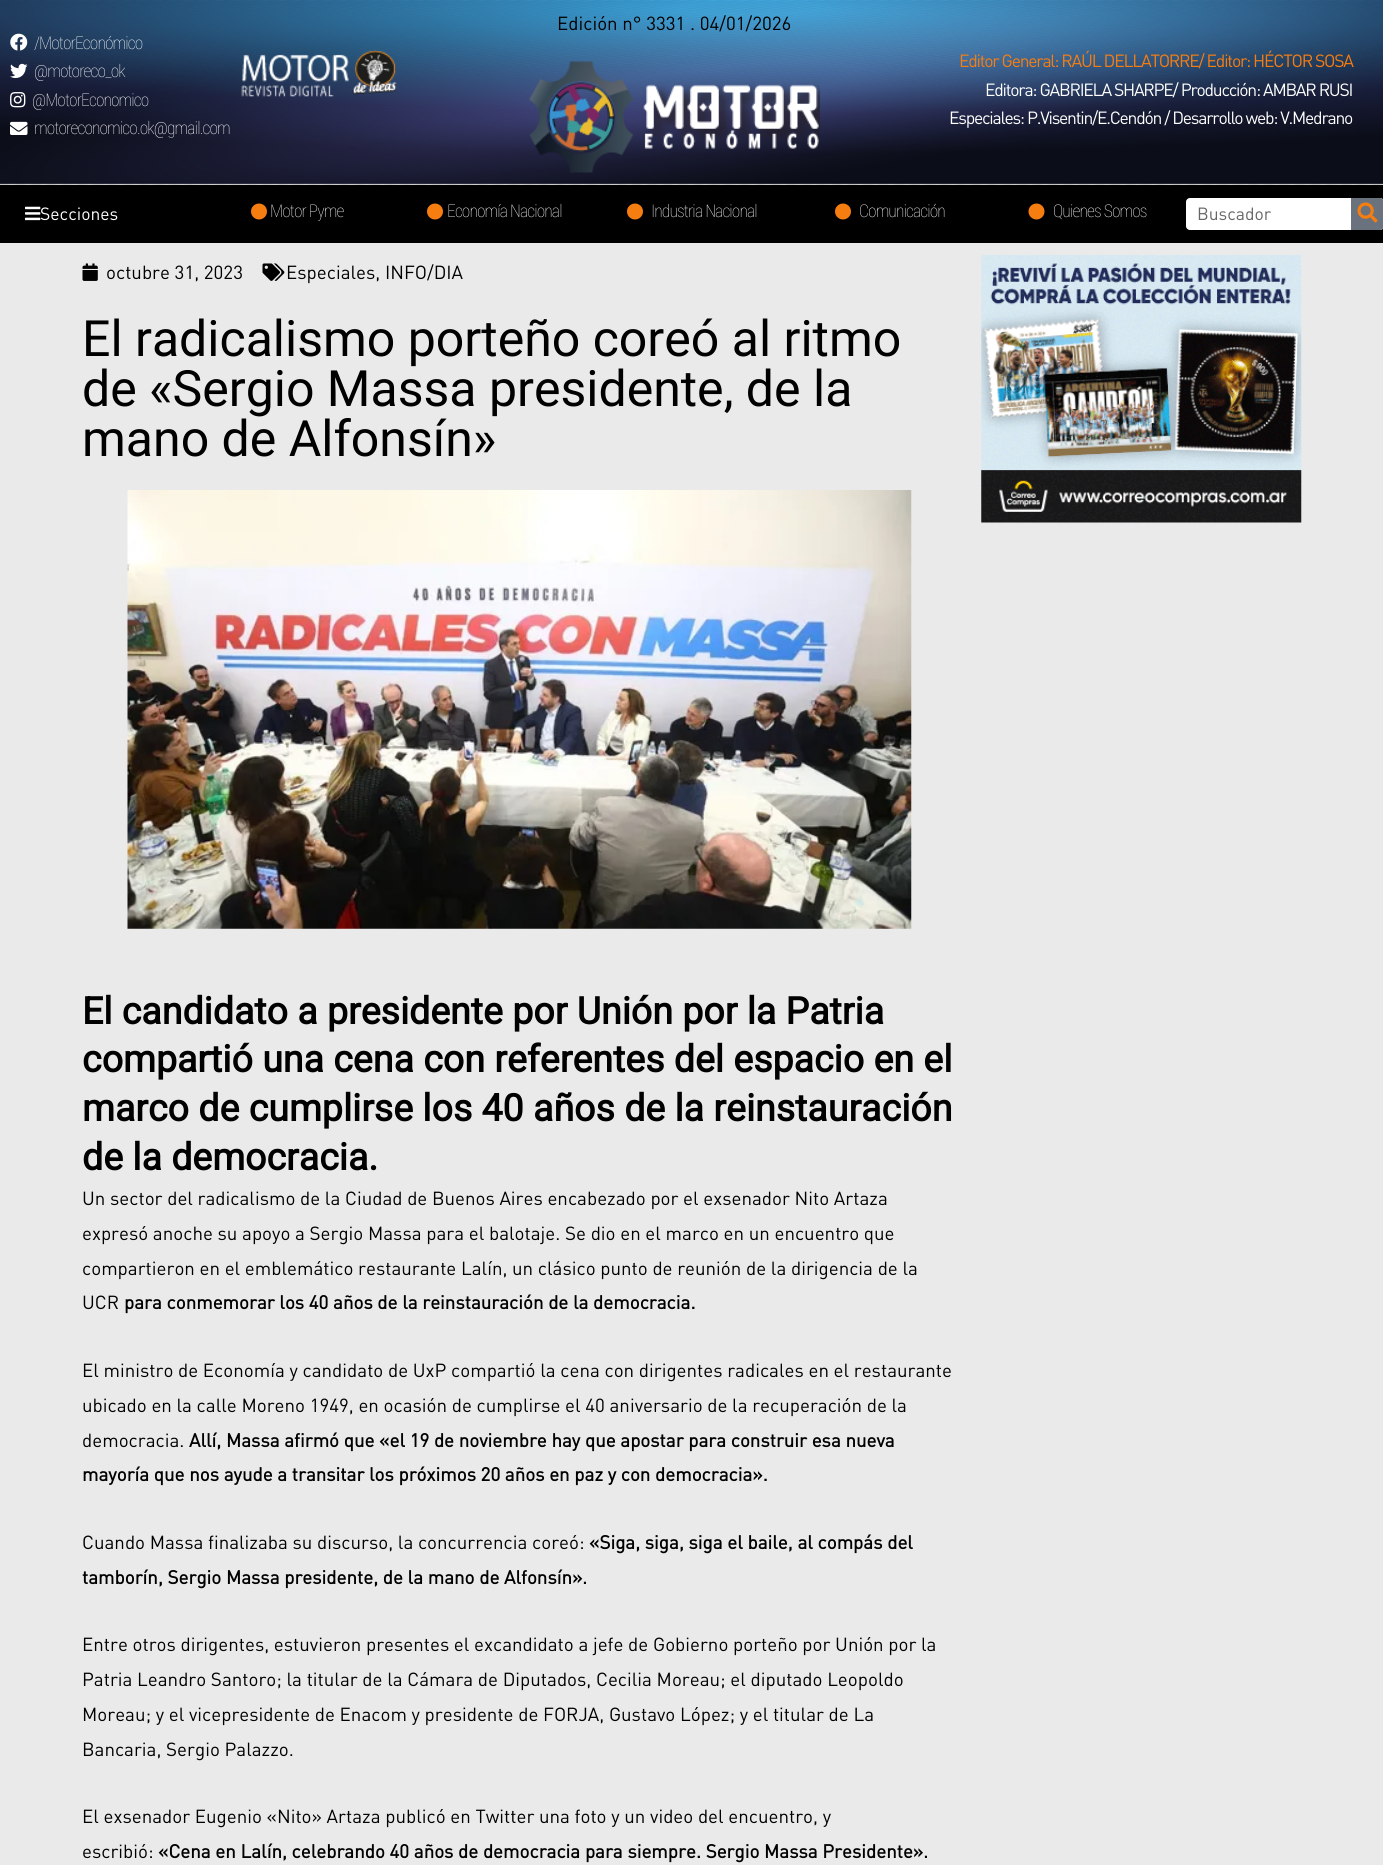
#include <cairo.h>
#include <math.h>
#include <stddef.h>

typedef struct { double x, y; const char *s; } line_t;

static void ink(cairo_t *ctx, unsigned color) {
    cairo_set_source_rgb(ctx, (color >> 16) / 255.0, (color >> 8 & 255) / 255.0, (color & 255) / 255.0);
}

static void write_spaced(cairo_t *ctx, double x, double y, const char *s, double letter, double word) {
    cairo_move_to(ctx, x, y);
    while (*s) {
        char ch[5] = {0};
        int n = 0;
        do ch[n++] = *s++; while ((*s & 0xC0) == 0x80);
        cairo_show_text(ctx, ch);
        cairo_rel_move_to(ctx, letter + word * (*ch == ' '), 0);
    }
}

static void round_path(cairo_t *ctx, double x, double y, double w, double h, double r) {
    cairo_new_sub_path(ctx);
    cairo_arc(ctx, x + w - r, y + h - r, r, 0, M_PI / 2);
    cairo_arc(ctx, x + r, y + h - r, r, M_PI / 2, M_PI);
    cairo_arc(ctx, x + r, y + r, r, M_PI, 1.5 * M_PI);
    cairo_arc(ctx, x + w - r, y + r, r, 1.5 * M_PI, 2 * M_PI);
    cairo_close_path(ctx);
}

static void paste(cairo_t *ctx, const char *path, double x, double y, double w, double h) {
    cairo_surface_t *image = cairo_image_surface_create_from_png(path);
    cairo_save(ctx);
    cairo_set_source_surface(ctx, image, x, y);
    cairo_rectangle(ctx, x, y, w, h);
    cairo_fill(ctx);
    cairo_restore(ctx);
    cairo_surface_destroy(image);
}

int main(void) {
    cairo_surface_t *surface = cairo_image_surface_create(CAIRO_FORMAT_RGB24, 1383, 1865);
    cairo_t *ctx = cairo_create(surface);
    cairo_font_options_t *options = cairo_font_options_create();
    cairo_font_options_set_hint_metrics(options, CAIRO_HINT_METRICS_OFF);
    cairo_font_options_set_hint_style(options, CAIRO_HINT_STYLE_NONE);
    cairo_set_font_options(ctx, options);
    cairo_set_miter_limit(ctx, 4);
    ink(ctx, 0xEAEAEA);
    cairo_paint(ctx);
    paste(ctx, "media/1.png", 0, 0, 1383, 185);
    cairo_select_font_face(ctx, "DIN", CAIRO_FONT_SLANT_NORMAL, CAIRO_FONT_WEIGHT_NORMAL);
    cairo_set_font_size(ctx, 18.75);
    ink(ctx, 0x000000);
    cairo_move_to(ctx, 557, 30);
    cairo_show_text(ctx, "Edición n° 3331 . 04/01/2026");
    paste(ctx, "media/2.png", 529, 61, 291, 112);
    paste(ctx, "media/3.png", 10, 33, 18, 18);
    cairo_select_font_face(ctx, "Roboto Condensed Thin", CAIRO_FONT_SLANT_NORMAL, CAIRO_FONT_WEIGHT_NORMAL);
    cairo_set_font_size(ctx, 17.5);
    ink(ctx, 0xFFFFFF);
    write_spaced(ctx, 34, 49, "/MotorEconómico", -0.9, 0);
    paste(ctx, "media/4.png", 10, 63, 18, 16);
    write_spaced(ctx, 34, 77, "@motoreco_ok", -0.9, 0);
    paste(ctx, "media/5.png", 10, 92, 16, 16);
    write_spaced(ctx, 32, 106, "@MotorEconomico", -0.9, 0);
    paste(ctx, "media/6.png", 10, 121, 18, 14);
    write_spaced(ctx, 34, 134, "motoreconomico.ok@gmail.com", -0.9, 0);
    paste(ctx, "media/7.png", 241, 50, 156, 47);
    cairo_select_font_face(ctx, "DIN", CAIRO_FONT_SLANT_NORMAL, CAIRO_FONT_WEIGHT_NORMAL);
    ink(ctx, 0xF67E11);
    write_spaced(ctx, 959, 67, "Editor General: RAÚL DELLATORRE/ Editor: HÉCTOR SOSA", -1.25, 0);
    ink(ctx, 0xFFFFFF);
    write_spaced(ctx, 985, 96, "Editora: GABRIELA SHARPE/ Producción: AMBAR RUSI", -1.25, 0);
    write_spaced(ctx, 949, 124, "Especiales: P.Visentin/E.Cendón / Desarrollo web: V.Medrano", -1.25, 0);
    ink(ctx, 0x000000);
    cairo_rectangle(ctx, 0, 185, 1383, 58);
    cairo_fill(ctx);
    paste(ctx, "media/8.png", 25, 206, 16, 15);
    ink(ctx, 0xFFFFFF);
    cairo_move_to(ctx, 40, 220);
    cairo_show_text(ctx, "Secciones");
    ink(ctx, 0xF67E11);
    cairo_new_path(ctx);
    cairo_arc(ctx, 259, 211.5, 8, 0, 2 * M_PI);
    cairo_fill(ctx);
    cairo_select_font_face(ctx, "Roboto Condensed Thin", CAIRO_FONT_SLANT_NORMAL, CAIRO_FONT_WEIGHT_NORMAL);
    ink(ctx, 0xFFFFFF);
    write_spaced(ctx, 270, 217, "Motor Pyme", -0.9, 0);
    ink(ctx, 0xF67E11);
    cairo_new_path(ctx);
    cairo_arc(ctx, 435, 211.5, 8, 0, 2 * M_PI);
    cairo_fill(ctx);
    ink(ctx, 0xFFFFFF);
    write_spaced(ctx, 447, 217, "Economía Nacional", -0.9, 0);
    ink(ctx, 0xF67E11);
    cairo_new_path(ctx);
    cairo_arc(ctx, 635, 211.5, 8, 0, 2 * M_PI);
    cairo_fill(ctx);
    ink(ctx, 0xFFFFFF);
    write_spaced(ctx, 651, 217, "Industria Nacional", -0.9, 0);
    ink(ctx, 0xF67E11);
    cairo_new_path(ctx);
    cairo_arc(ctx, 843, 211.5, 8, 0, 2 * M_PI);
    cairo_fill(ctx);
    ink(ctx, 0xFFFFFF);
    write_spaced(ctx, 859, 217, "Comunicación", -0.9, 0);
    ink(ctx, 0xF67E11);
    cairo_new_path(ctx);
    cairo_arc(ctx, 1036.5, 211.5, 8, 0, 2 * M_PI);
    cairo_fill(ctx);
    ink(ctx, 0xFFFFFF);
    write_spaced(ctx, 1053, 217, "Quienes Somos", -0.9, 0);
    round_path(ctx, 1186, 198, 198, 32, 4);
    cairo_fill(ctx);
    cairo_select_font_face(ctx, "DIN", CAIRO_FONT_SLANT_NORMAL, CAIRO_FONT_WEIGHT_NORMAL);
    ink(ctx, 0x666666);
    cairo_move_to(ctx, 1197, 220);
    cairo_show_text(ctx, "Buscador");
    ink(ctx, 0x69727D);
    cairo_new_path(ctx);
    cairo_move_to(ctx, 1351, 198);
    cairo_line_to(ctx, 1380, 198);
    cairo_curve_to(ctx, 1382, 198, 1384, 200, 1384, 202);
    cairo_line_to(ctx, 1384, 226);
    cairo_curve_to(ctx, 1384, 228, 1382, 230, 1380, 230);
    cairo_line_to(ctx, 1351, 230);
    cairo_close_path(ctx);
    cairo_fill(ctx);
    paste(ctx, "media/9.png", 1357, 202, 21, 21);
    paste(ctx, "media/10.png", 82, 263, 16, 18);
    cairo_set_font_size(ctx, 18.75);
    ink(ctx, 0x000000);
    cairo_move_to(ctx, 106, 279);
    cairo_show_text(ctx, "octubre 31, 2023");
    paste(ctx, "media/11.png", 262, 263, 23, 18);
    cairo_move_to(ctx, 286, 279);
    cairo_show_text(ctx, "Especiales, INFO/DIA");
    cairo_select_font_face(ctx, "Roboto", CAIRO_FONT_SLANT_NORMAL, CAIRO_FONT_WEIGHT_NORMAL);
    cairo_set_font_size(ctx, 50);
    {
        static const line_t items[] = {
            {82, 356, "El radicalismo porteño coreó al ritmo"},
            {82, 406, "de «Sergio Massa presidente, de la"},
            {82, 456, "mano de Alfonsín»"},
        };
        for (size_t i = 0; i < sizeof items / sizeof *items; i++) {
            cairo_move_to(ctx, items[i].x, items[i].y);
            cairo_show_text(ctx, items[i].s);
        }
    }
    paste(ctx, "media/12.png", 127, 490, 785, 439);
    cairo_select_font_face(ctx, "Roboto", CAIRO_FONT_SLANT_NORMAL, CAIRO_FONT_WEIGHT_BOLD);
    cairo_set_font_size(ctx, 37.5);
    {
        static const line_t items[] = {
            {82, 1024, "El candidato a presidente por Unión por la Patria"},
            {82, 1072, "compartió una cena con referentes del espacio en el"},
            {82, 1121, "marco de cumplirse los 40 años de la reinstauración"},
            {82, 1170, "de la democracia."},
        };
        for (size_t i = 0; i < sizeof items / sizeof *items; i++) {
            cairo_move_to(ctx, items[i].x, items[i].y);
            cairo_show_text(ctx, items[i].s);
        }
    }
    cairo_select_font_face(ctx, "DIN", CAIRO_FONT_SLANT_NORMAL, CAIRO_FONT_WEIGHT_NORMAL);
    cairo_set_font_size(ctx, 18.75);
    {
        static const line_t items[] = {
            {82, 1205, "Un sector del radicalismo de la Ciudad de Buenos Aires encabezado por el exsenador Nito Artaza"},
            {82, 1240, "expresó anoche su apoyo a Sergio Massa para el balotaje. Se dio en el marco en un encuentro que"},
            {82, 1275, "compartieron en el emblemático restaurante Lalín, un clásico punto de reunión de la dirigencia de la"},
            {82, 1309, "UCR"},
        };
        for (size_t i = 0; i < sizeof items / sizeof *items; i++) {
            cairo_move_to(ctx, items[i].x, items[i].y);
            cairo_show_text(ctx, items[i].s);
        }
    }
    cairo_select_font_face(ctx, "DIN", CAIRO_FONT_SLANT_NORMAL, CAIRO_FONT_WEIGHT_BOLD);
    cairo_move_to(ctx, 124, 1309);
    cairo_show_text(ctx, "para conmemorar los 40 años de la reinstauración de la democracia.");
    cairo_select_font_face(ctx, "DIN", CAIRO_FONT_SLANT_NORMAL, CAIRO_FONT_WEIGHT_NORMAL);
    {
        static const line_t items[] = {
            {82, 1377, "El ministro de Economía y candidato de UxP compartió la cena con dirigentes radicales en el restaurante"},
            {82, 1412, "ubicado en la calle Moreno 1949, en ocasión de cumplirse el 40 aniversario de la recuperación de la"},
            {82, 1447, "democracia."},
        };
        for (size_t i = 0; i < sizeof items / sizeof *items; i++) {
            cairo_move_to(ctx, items[i].x, items[i].y);
            cairo_show_text(ctx, items[i].s);
        }
    }
    cairo_select_font_face(ctx, "DIN", CAIRO_FONT_SLANT_NORMAL, CAIRO_FONT_WEIGHT_BOLD);
    cairo_move_to(ctx, 189, 1447);
    cairo_show_text(ctx, "Allí, Massa afirmó que «el 19 de noviembre hay que apostar para construir esa nueva");
    cairo_move_to(ctx, 82, 1481);
    cairo_show_text(ctx, "mayoría que nos ayude a transitar los próximos 20 años en paz y con democracia».");
    cairo_select_font_face(ctx, "DIN", CAIRO_FONT_SLANT_NORMAL, CAIRO_FONT_WEIGHT_NORMAL);
    cairo_move_to(ctx, 82, 1549);
    cairo_show_text(ctx, "Cuando Massa finalizaba su discurso, la concurrencia coreó:");
    cairo_select_font_face(ctx, "DIN", CAIRO_FONT_SLANT_NORMAL, CAIRO_FONT_WEIGHT_BOLD);
    cairo_move_to(ctx, 589, 1549);
    cairo_show_text(ctx, "«Siga, siga, siga el baile, al compás del");
    cairo_move_to(ctx, 82, 1584);
    cairo_show_text(ctx, "tamborín, Sergio Massa presidente, de la mano de Alfonsín».");
    cairo_select_font_face(ctx, "DIN", CAIRO_FONT_SLANT_NORMAL, CAIRO_FONT_WEIGHT_NORMAL);
    {
        static const line_t items[] = {
            {82, 1651, "Entre otros dirigentes, estuvieron presentes el excandidato a jefe de Gobierno porteño por Unión por la"},
            {82, 1686, "Patria Leandro Santoro; la titular de la Cámara de Diputados, Cecilia Moreau; el diputado Leopoldo"},
            {82, 1721, "Moreau; y el vicepresidente de Enacom y presidente de FORJA, Gustavo López; y el titular de La"},
            {82, 1756, "Bancaria, Sergio Palazzo."},
            {82, 1823, "El exsenador Eugenio «Nito» Artaza publicó en Twitter una foto y un video del encuentro, y"},
            {82, 1858, "escribió:"},
        };
        for (size_t i = 0; i < sizeof items / sizeof *items; i++) {
            cairo_move_to(ctx, items[i].x, items[i].y);
            cairo_show_text(ctx, items[i].s);
        }
    }
    cairo_select_font_face(ctx, "DIN", CAIRO_FONT_SLANT_NORMAL, CAIRO_FONT_WEIGHT_BOLD);
    cairo_move_to(ctx, 158, 1858);
    cairo_show_text(ctx, "«Cena en Lalín, celebrando 40 años de democracia para siempre. Sergio Massa Presidente».");
    paste(ctx, "media/13.png", 981, 255, 321, 268);
    cairo_surface_write_to_png(surface, "image.png");
    cairo_font_options_destroy(options);
    cairo_destroy(ctx);
    cairo_surface_destroy(surface);
    return 0;
}
